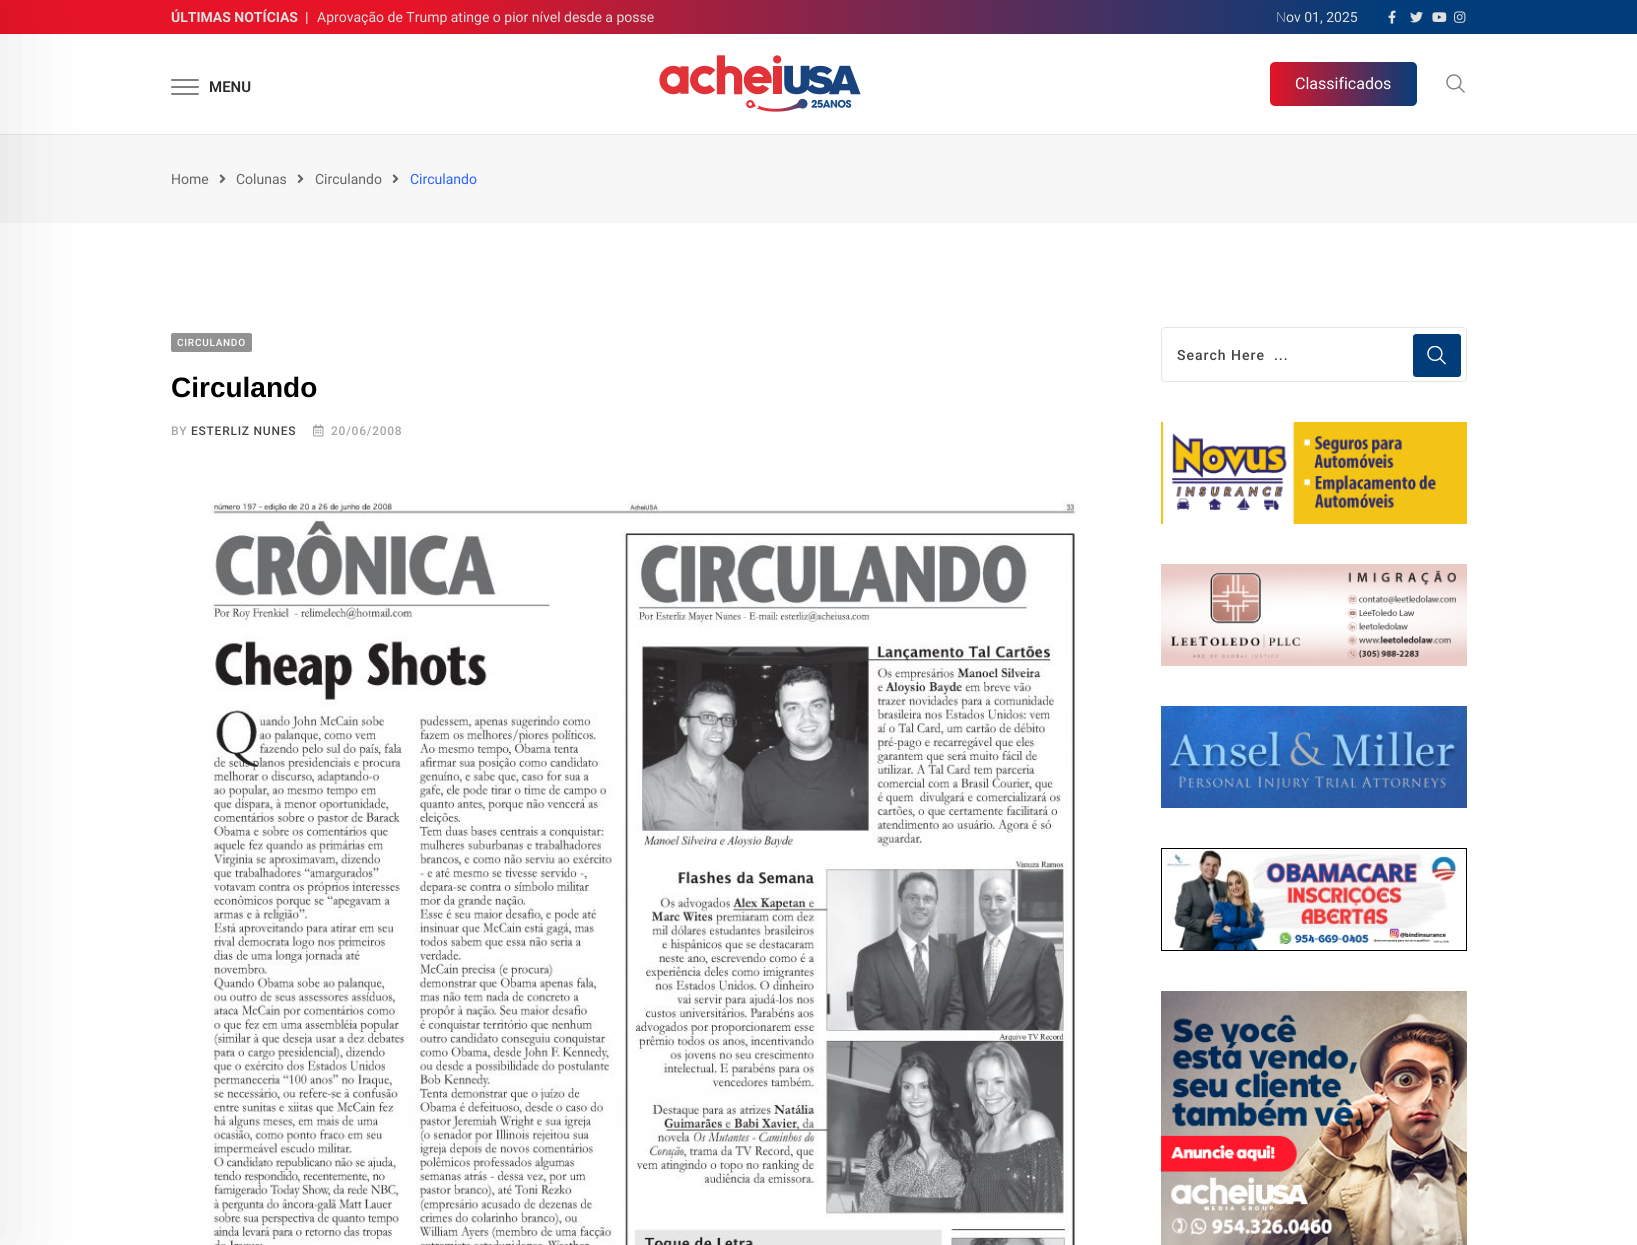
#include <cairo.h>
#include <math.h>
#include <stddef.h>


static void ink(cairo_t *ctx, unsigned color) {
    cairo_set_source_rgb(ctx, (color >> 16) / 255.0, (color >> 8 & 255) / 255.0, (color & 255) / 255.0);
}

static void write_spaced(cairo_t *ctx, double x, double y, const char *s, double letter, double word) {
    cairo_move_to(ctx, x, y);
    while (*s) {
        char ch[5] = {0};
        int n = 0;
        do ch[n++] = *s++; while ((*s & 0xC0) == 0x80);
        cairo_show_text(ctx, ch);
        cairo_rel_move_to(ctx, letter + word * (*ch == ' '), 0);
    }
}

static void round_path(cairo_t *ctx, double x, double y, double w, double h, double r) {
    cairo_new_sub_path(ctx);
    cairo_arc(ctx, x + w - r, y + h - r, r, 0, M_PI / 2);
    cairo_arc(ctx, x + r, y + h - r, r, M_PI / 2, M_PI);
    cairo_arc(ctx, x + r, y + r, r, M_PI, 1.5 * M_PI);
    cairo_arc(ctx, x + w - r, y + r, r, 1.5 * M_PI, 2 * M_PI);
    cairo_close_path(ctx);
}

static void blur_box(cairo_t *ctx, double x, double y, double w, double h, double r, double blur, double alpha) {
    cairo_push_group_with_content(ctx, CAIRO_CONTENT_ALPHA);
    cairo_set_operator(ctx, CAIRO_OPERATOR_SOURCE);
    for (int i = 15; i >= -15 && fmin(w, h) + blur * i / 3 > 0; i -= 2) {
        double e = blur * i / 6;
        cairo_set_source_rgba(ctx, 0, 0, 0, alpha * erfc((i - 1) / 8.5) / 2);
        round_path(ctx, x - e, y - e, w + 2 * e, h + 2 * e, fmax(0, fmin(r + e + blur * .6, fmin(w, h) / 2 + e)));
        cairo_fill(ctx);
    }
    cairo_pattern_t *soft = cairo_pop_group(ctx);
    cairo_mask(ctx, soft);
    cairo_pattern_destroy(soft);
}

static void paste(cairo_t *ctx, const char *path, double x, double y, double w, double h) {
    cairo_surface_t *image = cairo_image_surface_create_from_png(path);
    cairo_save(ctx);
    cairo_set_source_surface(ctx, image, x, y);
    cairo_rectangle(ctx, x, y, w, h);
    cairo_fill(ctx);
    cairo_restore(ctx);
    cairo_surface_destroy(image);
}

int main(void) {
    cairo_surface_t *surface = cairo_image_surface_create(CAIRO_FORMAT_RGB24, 1637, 1245);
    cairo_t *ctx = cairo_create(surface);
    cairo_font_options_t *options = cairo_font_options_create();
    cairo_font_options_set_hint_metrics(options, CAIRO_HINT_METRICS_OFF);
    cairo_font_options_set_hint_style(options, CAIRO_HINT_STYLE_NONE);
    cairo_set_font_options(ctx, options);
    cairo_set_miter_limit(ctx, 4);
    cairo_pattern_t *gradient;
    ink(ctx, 0xFFFFFF);
    cairo_paint(ctx);
    paste(ctx, "media/1.png", 0, 0, 1637, 34);
    cairo_select_font_face(ctx, "Roboto", CAIRO_FONT_SLANT_NORMAL, CAIRO_FONT_WEIGHT_BOLD);
    cairo_set_font_size(ctx, 14);
    ink(ctx, 0xE0E0E0);
    cairo_move_to(ctx, 171, 22);
    cairo_show_text(ctx, "ÚLTIMAS NOTÍCIAS");
    cairo_move_to(ctx, 305, 22);
    cairo_show_text(ctx, "|");
    cairo_select_font_face(ctx, "Roboto", CAIRO_FONT_SLANT_NORMAL, CAIRO_FONT_WEIGHT_NORMAL);
    cairo_move_to(ctx, 317, 22);
    cairo_show_text(ctx, "Aprovação de Trump atinge o pior nível desde a posse");
    cairo_select_font_face(ctx, "Noto Sans ExtraLight", CAIRO_FONT_SLANT_NORMAL, CAIRO_FONT_WEIGHT_NORMAL);
    cairo_move_to(ctx, 1276, 22);
    cairo_show_text(ctx, "N");
    cairo_select_font_face(ctx, "Roboto", CAIRO_FONT_SLANT_NORMAL, CAIRO_FONT_WEIGHT_NORMAL);
    cairo_move_to(ctx, 1286, 22);
    cairo_show_text(ctx, "ov 01, 2025");
    paste(ctx, "media/2.png", 1388, 10, 8, 14);
    paste(ctx, "media/3.png", 1410, 11, 13, 12);
    paste(ctx, "media/4.png", 1432, 12, 15, 10);
    paste(ctx, "media/5.png", 1454, 11, 12, 12);
    ink(ctx, 0xE5E5E5);
    cairo_rectangle(ctx, 0, 134, 1637, 1);
    cairo_fill(ctx);
    ink(ctx, 0xF7F7F7);
    cairo_rectangle(ctx, 0, 135, 1637, 88);
    cairo_fill(ctx);
    ink(ctx, 0x000000);
    blur_box(ctx, -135, 0, 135, 1245, 0, 45, 0.1);
    ink(ctx, 0x818181);
    round_path(ctx, 171, 79, 28, 2, 1);
    cairo_fill(ctx);
    round_path(ctx, 171, 86, 28, 2, 1);
    cairo_fill(ctx);
    round_path(ctx, 171, 93, 28, 2, 1);
    cairo_fill(ctx);
    cairo_select_font_face(ctx, "Roboto SemiBold", CAIRO_FONT_SLANT_NORMAL, CAIRO_FONT_WEIGHT_NORMAL);
    cairo_set_font_size(ctx, 15);
    ink(ctx, 0x292929);
    cairo_move_to(ctx, 209, 92);
    cairo_show_text(ctx, "MENU");
    paste(ctx, "media/6.png", 659, 55, 202, 57);
    gradient = cairo_pattern_create_linear(1270, 84, 1564, 84);
    cairo_pattern_add_color_stop_rgba(gradient, 0, 0.89, 0.078, 0.153, 1);
    cairo_pattern_add_color_stop_rgba(gradient, 0.51, 0.004, 0.239, 0.478, 1);
    cairo_pattern_add_color_stop_rgba(gradient, 1, 0.89, 0.078, 0.153, 1);
    cairo_set_source(ctx, gradient);
    cairo_pattern_destroy(gradient);
    round_path(ctx, 1270, 62, 147, 44, 5);
    cairo_fill(ctx);
    cairo_select_font_face(ctx, "Roboto", CAIRO_FONT_SLANT_NORMAL, CAIRO_FONT_WEIGHT_NORMAL);
    cairo_set_font_size(ctx, 16);
    ink(ctx, 0xFFFFFF);
    cairo_move_to(ctx, 1295, 89);
    cairo_show_text(ctx, "Classificados");
    paste(ctx, "media/7.png", 1446, 74, 19, 19);
    cairo_set_font_size(ctx, 14);
    ink(ctx, 0x646464);
    cairo_move_to(ctx, 171, 184);
    cairo_show_text(ctx, "Home");
    paste(ctx, "media/8.png", 219, 174, 7, 10);
    cairo_move_to(ctx, 236, 184);
    cairo_show_text(ctx, "Colunas");
    paste(ctx, "media/8.png", 297, 174, 7, 10);
    cairo_move_to(ctx, 315, 184);
    cairo_show_text(ctx, "Circulando");
    paste(ctx, "media/8.png", 392, 174, 7, 10);
    ink(ctx, 0x2962FF);
    cairo_move_to(ctx, 410, 184);
    cairo_show_text(ctx, "Circulando");
    ink(ctx, 0x929292);
    round_path(ctx, 171, 333, 81, 19, 2);
    cairo_fill(ctx);
    cairo_select_font_face(ctx, "Roboto Medium", CAIRO_FONT_SLANT_NORMAL, CAIRO_FONT_WEIGHT_NORMAL);
    cairo_set_font_size(ctx, 10);
    ink(ctx, 0xFFFFFF);
    write_spaced(ctx, 177, 346, "CIRCULANDO", 0.75, 0);
    cairo_select_font_face(ctx, "Liberation Sans", CAIRO_FONT_SLANT_NORMAL, CAIRO_FONT_WEIGHT_BOLD);
    cairo_set_font_size(ctx, 28);
    ink(ctx, 0x000000);
    cairo_move_to(ctx, 171, 397);
    cairo_show_text(ctx, "Circulando");
    cairo_select_font_face(ctx, "Roboto Medium", CAIRO_FONT_SLANT_NORMAL, CAIRO_FONT_WEIGHT_NORMAL);
    cairo_set_font_size(ctx, 12);
    ink(ctx, 0xA5A6AA);
    write_spaced(ctx, 171, 435, "BY", 0.75, 0);
    ink(ctx, 0x444444);
    write_spaced(ctx, 191, 435, "ESTERLIZ NUNES", 0.75, 0);
    paste(ctx, "media/9.png", 313, 424, 11, 13);
    ink(ctx, 0xA5A6AA);
    write_spaced(ctx, 331, 435, "20/06/2008", 0.75, 0);
    paste(ctx, "media/10.png", 210, 500, 868, 745);
    round_path(ctx, 1161.5, 327.5, 305, 54, 3.5);
    ink(ctx, 0xE5E5E5);
    cairo_set_line_width(ctx, 1);
    cairo_stroke(ctx);
    cairo_set_font_size(ctx, 14);
    ink(ctx, 0x444444);
    write_spaced(ctx, 1177, 360, "Search Here  ...", 1, 0);
    ink(ctx, 0x013D7A);
    round_path(ctx, 1413, 334, 48, 43, 3);
    cairo_fill(ctx);
    paste(ctx, "media/11.png", 1427, 346, 19, 19);
    paste(ctx, "media/12.png", 1161, 422, 306, 102);
    paste(ctx, "media/13.png", 1161, 564, 306, 102);
    paste(ctx, "media/14.png", 1161, 706, 306, 102);
    cairo_rectangle(ctx, 1161.5, 848.5, 305, 102);
    ink(ctx, 0x000000);
    cairo_stroke(ctx);
    paste(ctx, "media/15.png", 1162, 849, 304, 101);
    paste(ctx, "media/16.png", 1161, 991, 306, 254);
    cairo_surface_write_to_png(surface, "image.png");
    cairo_font_options_destroy(options);
    cairo_destroy(ctx);
    cairo_surface_destroy(surface);
    return 0;
}
